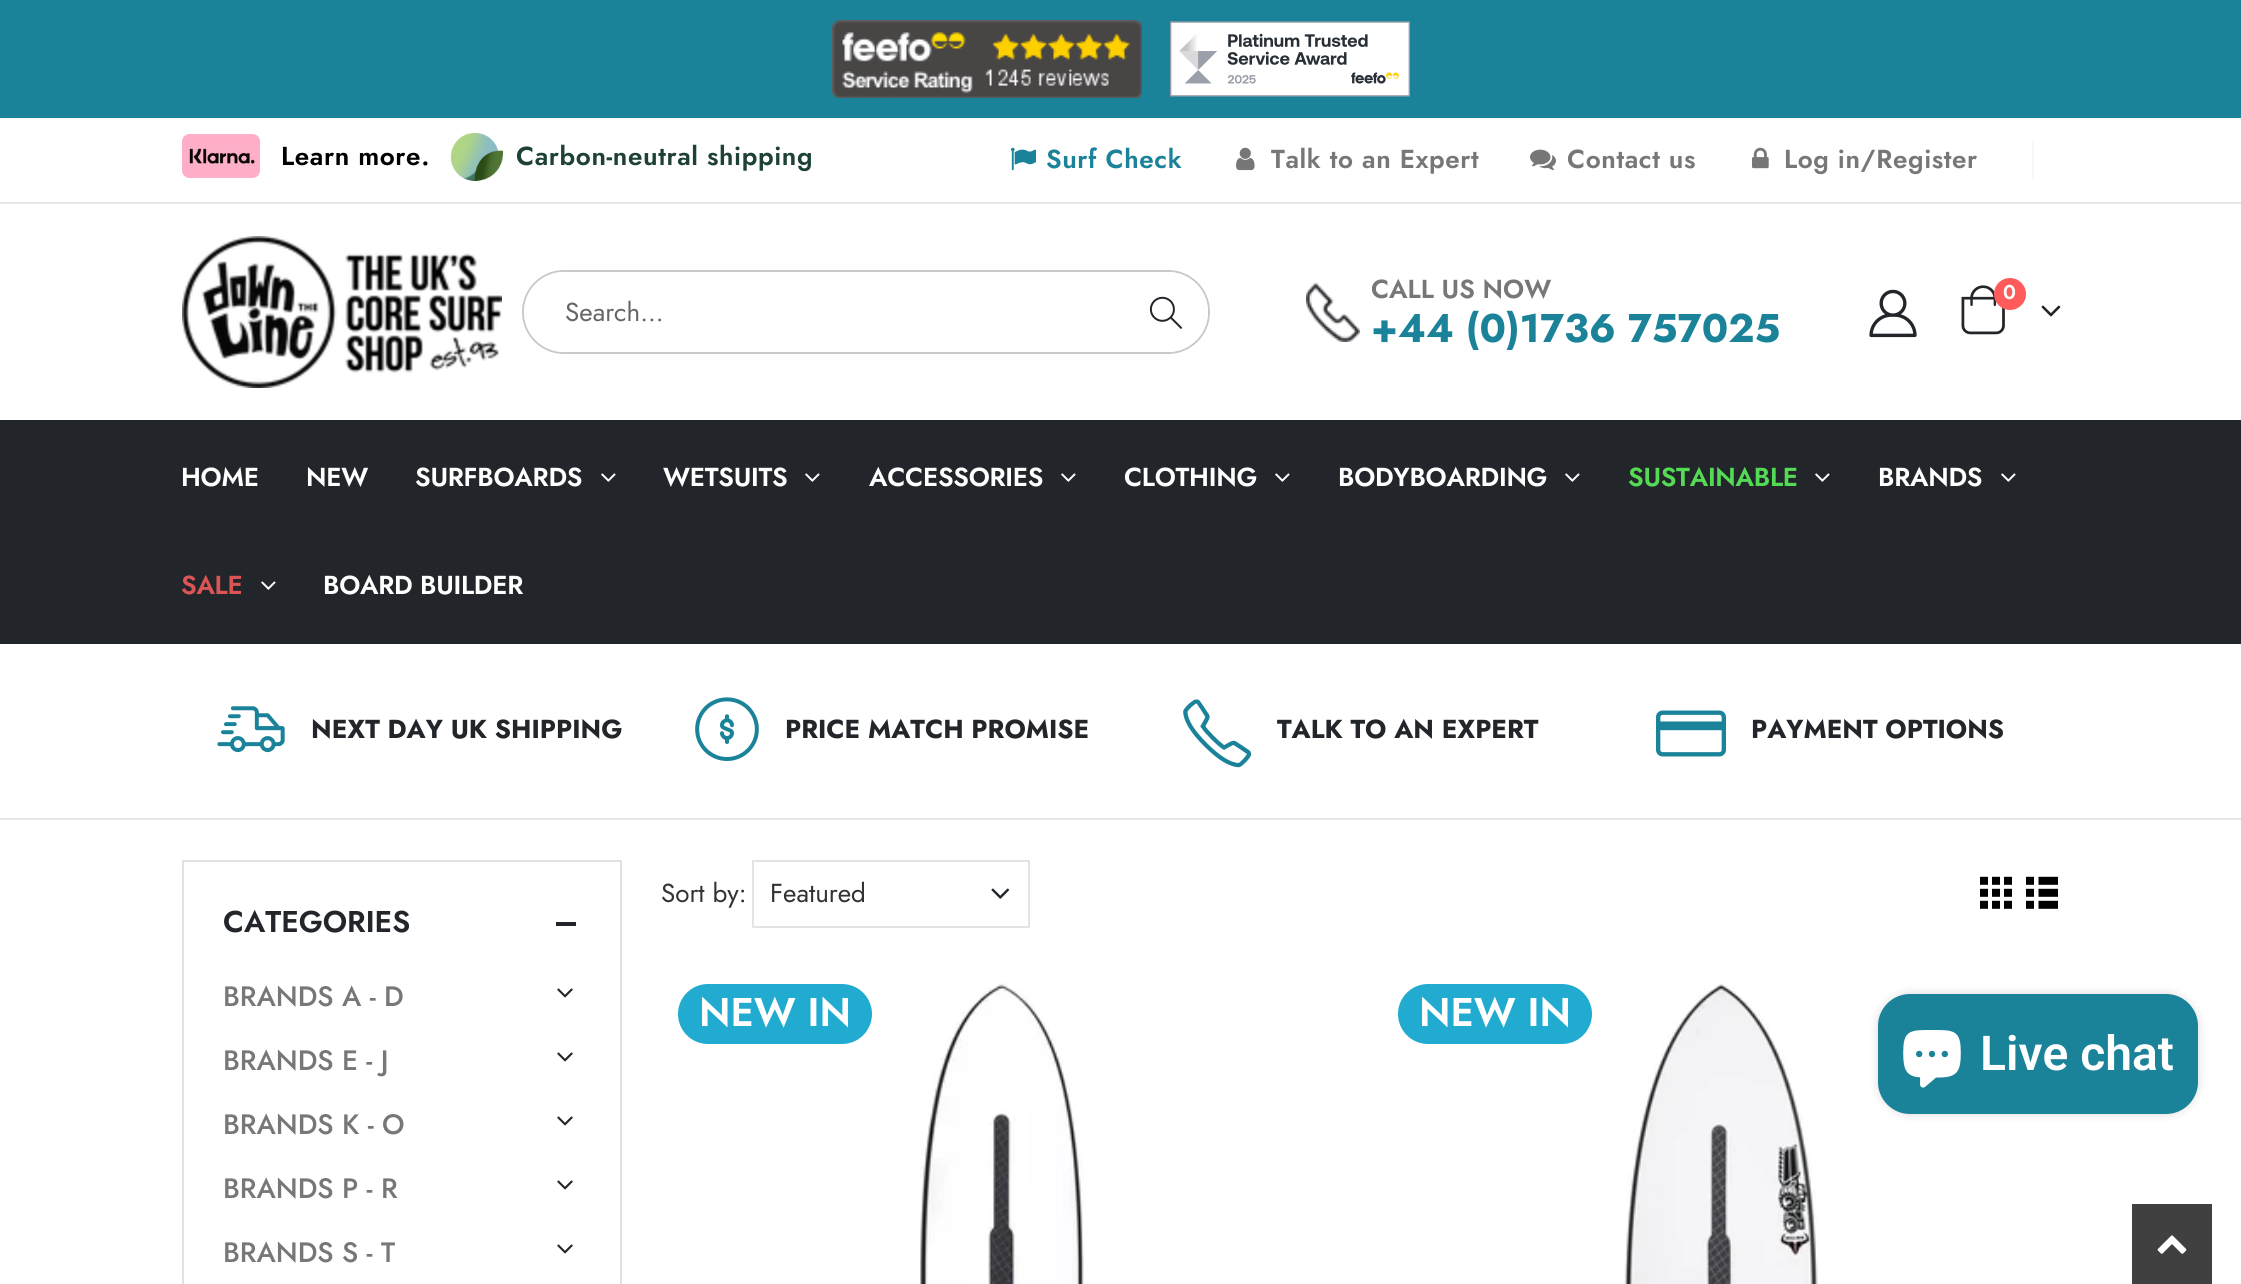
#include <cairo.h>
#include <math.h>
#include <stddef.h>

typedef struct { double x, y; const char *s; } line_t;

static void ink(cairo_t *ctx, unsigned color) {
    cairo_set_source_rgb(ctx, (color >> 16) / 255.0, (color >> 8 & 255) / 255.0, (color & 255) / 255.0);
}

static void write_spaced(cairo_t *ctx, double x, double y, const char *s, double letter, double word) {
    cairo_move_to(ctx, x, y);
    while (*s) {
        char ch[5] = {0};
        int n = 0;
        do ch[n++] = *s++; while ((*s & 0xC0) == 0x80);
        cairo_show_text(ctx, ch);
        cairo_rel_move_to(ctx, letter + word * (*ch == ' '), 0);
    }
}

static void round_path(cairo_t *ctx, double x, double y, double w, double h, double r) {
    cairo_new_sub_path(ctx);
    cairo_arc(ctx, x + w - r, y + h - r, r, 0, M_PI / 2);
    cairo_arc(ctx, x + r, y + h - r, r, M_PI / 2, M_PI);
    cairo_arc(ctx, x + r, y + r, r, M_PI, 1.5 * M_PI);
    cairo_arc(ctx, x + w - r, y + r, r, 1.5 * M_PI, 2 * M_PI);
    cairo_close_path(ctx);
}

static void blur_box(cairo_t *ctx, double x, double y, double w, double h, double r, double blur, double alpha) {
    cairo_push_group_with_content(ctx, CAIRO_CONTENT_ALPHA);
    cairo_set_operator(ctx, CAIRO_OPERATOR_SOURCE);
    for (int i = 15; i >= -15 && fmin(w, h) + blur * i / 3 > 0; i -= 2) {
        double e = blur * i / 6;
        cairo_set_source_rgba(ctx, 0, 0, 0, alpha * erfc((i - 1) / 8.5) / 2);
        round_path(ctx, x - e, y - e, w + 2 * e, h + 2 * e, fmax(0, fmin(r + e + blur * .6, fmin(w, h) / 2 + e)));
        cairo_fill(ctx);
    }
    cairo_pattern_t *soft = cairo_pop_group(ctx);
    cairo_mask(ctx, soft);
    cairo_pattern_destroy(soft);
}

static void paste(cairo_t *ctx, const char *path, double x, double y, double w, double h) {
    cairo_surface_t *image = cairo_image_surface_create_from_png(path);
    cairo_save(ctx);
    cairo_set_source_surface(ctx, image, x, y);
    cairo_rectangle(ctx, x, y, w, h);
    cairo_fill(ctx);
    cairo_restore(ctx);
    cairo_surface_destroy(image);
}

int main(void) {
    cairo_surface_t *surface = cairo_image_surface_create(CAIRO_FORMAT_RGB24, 2241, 1284);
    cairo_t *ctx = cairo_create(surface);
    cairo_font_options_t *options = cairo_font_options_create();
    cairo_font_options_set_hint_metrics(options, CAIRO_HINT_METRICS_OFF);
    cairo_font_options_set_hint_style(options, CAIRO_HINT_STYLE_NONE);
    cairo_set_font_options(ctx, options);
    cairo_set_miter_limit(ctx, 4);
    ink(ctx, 0xFFFFFF);
    cairo_paint(ctx);
    ink(ctx, 0x1A8399);
    cairo_rectangle(ctx, 0, 0, 2241, 118);
    cairo_fill(ctx);
    paste(ctx, "media/1.png", 832, 20, 310, 78);
    paste(ctx, "media/2.png", 1170, 21, 240, 76);
    paste(ctx, "media/3.png", 182, 134, 78, 44);
    cairo_select_font_face(ctx, "Jost SemiBold", CAIRO_FONT_SLANT_NORMAL, CAIRO_FONT_WEIGHT_NORMAL);
    cairo_set_font_size(ctx, 26);
    ink(ctx, 0x000000);
    write_spaced(ctx, 281, 165, "Learn more.", 0.6, 0);
    paste(ctx, "media/4.png", 450, 133, 53, 49);
    ink(ctx, 0x1D4136);
    write_spaced(ctx, 516, 165, "Carbon-neutral shipping", 0.6, 0);
    paste(ctx, "media/5.png", 1011, 147, 25, 24);
    ink(ctx, 0x1A8399);
    write_spaced(ctx, 1046, 168, "Surf Check", 0.6, 0);
    paste(ctx, "media/6.png", 1236, 147, 19, 24);
    ink(ctx, 0x777777);
    write_spaced(ctx, 1271, 168, "Talk to an Expert", 0.6, 0);
    paste(ctx, "media/7.png", 1530, 149, 26, 21);
    write_spaced(ctx, 1567, 168, "Contact us", 0.6, 0);
    paste(ctx, "media/8.png", 1752, 147, 17, 22);
    write_spaced(ctx, 1784, 168, "Log in/Register", 0.6, 0);
    ink(ctx, 0xF7F7F7);
    cairo_rectangle(ctx, 2032, 140, 2, 40);
    cairo_fill(ctx);
    ink(ctx, 0xE7E7E7);
    cairo_rectangle(ctx, 0, 202, 2241, 2);
    cairo_fill(ctx);
    paste(ctx, "media/9.png", 182, 236, 320, 152);
    round_path(ctx, 523, 271, 686, 82, 41);
    ink(ctx, 0xC9C9C9);
    cairo_stroke(ctx);
    ink(ctx, 0xFFFFFF);
    round_path(ctx, 524, 272, 684, 80, 40);
    cairo_fill(ctx);
    cairo_select_font_face(ctx, "Jost", CAIRO_FONT_SLANT_NORMAL, CAIRO_FONT_WEIGHT_NORMAL);
    ink(ctx, 0x666666);
    cairo_move_to(ctx, 565, 321);
    cairo_show_text(ctx, "Search...");
    paste(ctx, "media/10.png", 1149, 296, 33, 33);
    paste(ctx, "media/11.png", 1306, 282, 54, 60);
    cairo_select_font_face(ctx, "Jost SemiBold", CAIRO_FONT_SLANT_NORMAL, CAIRO_FONT_WEIGHT_NORMAL);
    ink(ctx, 0x777777);
    cairo_move_to(ctx, 1371, 298);
    cairo_show_text(ctx, "CALL US NOW");
    cairo_select_font_face(ctx, "Jost", CAIRO_FONT_SLANT_NORMAL, CAIRO_FONT_WEIGHT_BOLD);
    cairo_set_font_size(ctx, 40);
    ink(ctx, 0x1A8399);
    cairo_move_to(ctx, 1371, 342);
    cairo_show_text(ctx, "+44 (0)1736 757025");
    paste(ctx, "media/12.png", 1869, 289, 48, 49);
    paste(ctx, "media/13.png", 1961, 285, 44, 50);
    ink(ctx, 0xFF5B5B);
    cairo_arc(ctx, 2010, 294, 16, 0, 2 * M_PI);
    cairo_fill(ctx);
    cairo_select_font_face(ctx, "Jost SemiBold", CAIRO_FONT_SLANT_NORMAL, CAIRO_FONT_WEIGHT_NORMAL);
    cairo_set_font_size(ctx, 20);
    ink(ctx, 0xFFFFFF);
    cairo_move_to(ctx, 2003, 299);
    cairo_show_text(ctx, "0");
    paste(ctx, "media/14.png", 2041, 305, 20, 12);
    ink(ctx, 0x222529);
    cairo_rectangle(ctx, 0, 420, 2241, 224);
    cairo_fill(ctx);
    cairo_set_font_size(ctx, 26);
    ink(ctx, 0xFFFFFF);
    {
        static const line_t items[] = {
            {181, 486, "HOME"},
            {306, 486, "NEW"},
            {415, 486, "SURFBOARDS"},
        };
        for (size_t i = 0; i < sizeof items / sizeof *items; i++) {
            write_spaced(ctx, items[i].x, items[i].y, items[i].s, -0.25, 0);
        }
    }
    paste(ctx, "media/15.png", 601, 473, 15, 9);
    write_spaced(ctx, 663, 486, "WETSUITS", -0.25, 0);
    paste(ctx, "media/15.png", 805, 473, 15, 9);
    write_spaced(ctx, 869, 486, "ACCESSORIES", -0.25, 0);
    paste(ctx, "media/15.png", 1061, 473, 15, 9);
    write_spaced(ctx, 1124, 486, "CLOTHING", -0.25, 0);
    paste(ctx, "media/15.png", 1275, 473, 15, 9);
    write_spaced(ctx, 1338, 486, "BODYBOARDING", -0.25, 0);
    paste(ctx, "media/15.png", 1565, 473, 15, 9);
    ink(ctx, 0x55DA55);
    write_spaced(ctx, 1628, 486, "SUSTAINABLE", -0.25, 0);
    paste(ctx, "media/15.png", 1815, 473, 15, 9);
    ink(ctx, 0xFFFFFF);
    write_spaced(ctx, 1878, 486, "BRANDS", -0.25, 0);
    paste(ctx, "media/15.png", 2001, 473, 15, 9);
    ink(ctx, 0xDA5555);
    write_spaced(ctx, 181, 594, "SALE", -0.25, 0);
    paste(ctx, "media/15.png", 261, 581, 15, 9);
    ink(ctx, 0xFFFFFF);
    write_spaced(ctx, 323, 594, "BOARD BUILDER", -0.25, 0);
    ink(ctx, 0xE7E7E7);
    cairo_rectangle(ctx, 0, 818, 2241, 2);
    cairo_fill(ctx);
    paste(ctx, "media/16.png", 217, 706, 68, 47);
    cairo_select_font_face(ctx, "Jost", CAIRO_FONT_SLANT_NORMAL, CAIRO_FONT_WEIGHT_BOLD);
    ink(ctx, 0x222529);
    cairo_move_to(ctx, 311, 738);
    cairo_show_text(ctx, "NEXT DAY UK SHIPPING");
    paste(ctx, "media/17.png", 695, 697, 64, 64);
    cairo_move_to(ctx, 785, 738);
    cairo_show_text(ctx, "PRICE MATCH PROMISE");
    paste(ctx, "media/18.png", 1183, 699, 69, 69);
    cairo_move_to(ctx, 1277, 738);
    cairo_show_text(ctx, "TALK TO AN EXPERT");
    paste(ctx, "media/19.png", 1656, 710, 70, 47);
    cairo_move_to(ctx, 1751, 738);
    cairo_show_text(ctx, "PAYMENT OPTIONS");
    cairo_rectangle(ctx, 183, 861, 438, 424);
    ink(ctx, 0xE1E1E1);
    cairo_stroke(ctx);
    cairo_select_font_face(ctx, "Jost SemiBold", CAIRO_FONT_SLANT_NORMAL, CAIRO_FONT_WEIGHT_NORMAL);
    cairo_set_font_size(ctx, 30);
    ink(ctx, 0x222529);
    cairo_move_to(ctx, 223, 932);
    cairo_show_text(ctx, "CATEGORIES");
    cairo_rectangle(ctx, 556, 922, 20, 4);
    cairo_fill(ctx);
    cairo_select_font_face(ctx, "Jost Medium", CAIRO_FONT_SLANT_NORMAL, CAIRO_FONT_WEIGHT_NORMAL);
    cairo_set_font_size(ctx, 28);
    ink(ctx, 0x777777);
    cairo_move_to(ctx, 223, 1006);
    cairo_show_text(ctx, "BRANDS A - D");
    paste(ctx, "media/20.png", 557, 988, 16, 10);
    cairo_move_to(ctx, 223, 1070);
    cairo_show_text(ctx, "BRANDS E - J");
    paste(ctx, "media/20.png", 557, 1052, 16, 10);
    cairo_move_to(ctx, 223, 1134);
    cairo_show_text(ctx, "BRANDS K - O");
    paste(ctx, "media/20.png", 557, 1116, 16, 10);
    cairo_move_to(ctx, 223, 1198);
    cairo_show_text(ctx, "BRANDS P - R");
    paste(ctx, "media/20.png", 557, 1180, 16, 10);
    cairo_move_to(ctx, 223, 1262);
    cairo_show_text(ctx, "BRANDS S - T");
    paste(ctx, "media/20.png", 557, 1244, 16, 10);
    cairo_select_font_face(ctx, "Jost", CAIRO_FONT_SLANT_NORMAL, CAIRO_FONT_WEIGHT_NORMAL);
    cairo_set_font_size(ctx, 26);
    ink(ctx, 0x333333);
    cairo_move_to(ctx, 661, 902);
    cairo_show_text(ctx, "Sort by:");
    cairo_rectangle(ctx, 753, 861, 276, 66);
    ink(ctx, 0xE4E4E4);
    cairo_stroke(ctx);
    ink(ctx, 0x333333);
    cairo_move_to(ctx, 770, 902);
    cairo_show_text(ctx, "Featured");
    paste(ctx, "media/21.png", 991, 888, 19, 11);
    paste(ctx, "media/22.png", 1980, 876, 32, 33);
    paste(ctx, "media/23.png", 2026, 876, 32, 33);
    ink(ctx, 0x21ABD0);
    round_path(ctx, 678, 984, 194, 60, 30);
    cairo_fill(ctx);
    cairo_select_font_face(ctx, "Jost SemiBold", CAIRO_FONT_SLANT_NORMAL, CAIRO_FONT_WEIGHT_NORMAL);
    cairo_set_font_size(ctx, 40);
    ink(ctx, 0xFFFFFF);
    cairo_move_to(ctx, 699, 1026);
    cairo_show_text(ctx, "NEW IN");
    paste(ctx, "media/24.png", 920, 982, 164, 302);
    ink(ctx, 0x21ABD0);
    round_path(ctx, 1398, 984, 194, 60, 30);
    cairo_fill(ctx);
    ink(ctx, 0xFFFFFF);
    cairo_move_to(ctx, 1419, 1026);
    cairo_show_text(ctx, "NEW IN");
    paste(ctx, "media/25.png", 1624, 982, 194, 302);
    ink(ctx, 0x404040);
    cairo_rectangle(ctx, 2132, 1204, 80, 80);
    cairo_fill(ctx);
    paste(ctx, "media/26.png", 2157, 1235, 30, 19);
    ink(ctx, 0x000000);
    blur_box(ctx, 1878, 994, 320, 120, 32, 5, 0.15);
    ink(ctx, 0x1A8399);
    round_path(ctx, 1878, 994, 320, 120, 32);
    cairo_fill(ctx);
    paste(ctx, "media/27.png", 1903, 1030, 58, 58);
    cairo_select_font_face(ctx, "Roboto SemiBold", CAIRO_FONT_SLANT_NORMAL, CAIRO_FONT_WEIGHT_NORMAL);
    cairo_set_font_size(ctx, 48);
    ink(ctx, 0xFFFFFF);
    cairo_move_to(ctx, 1980, 1070);
    cairo_show_text(ctx, "Live chat");
    cairo_surface_write_to_png(surface, "image.png");
    cairo_font_options_destroy(options);
    cairo_destroy(ctx);
    cairo_surface_destroy(surface);
    return 0;
}
